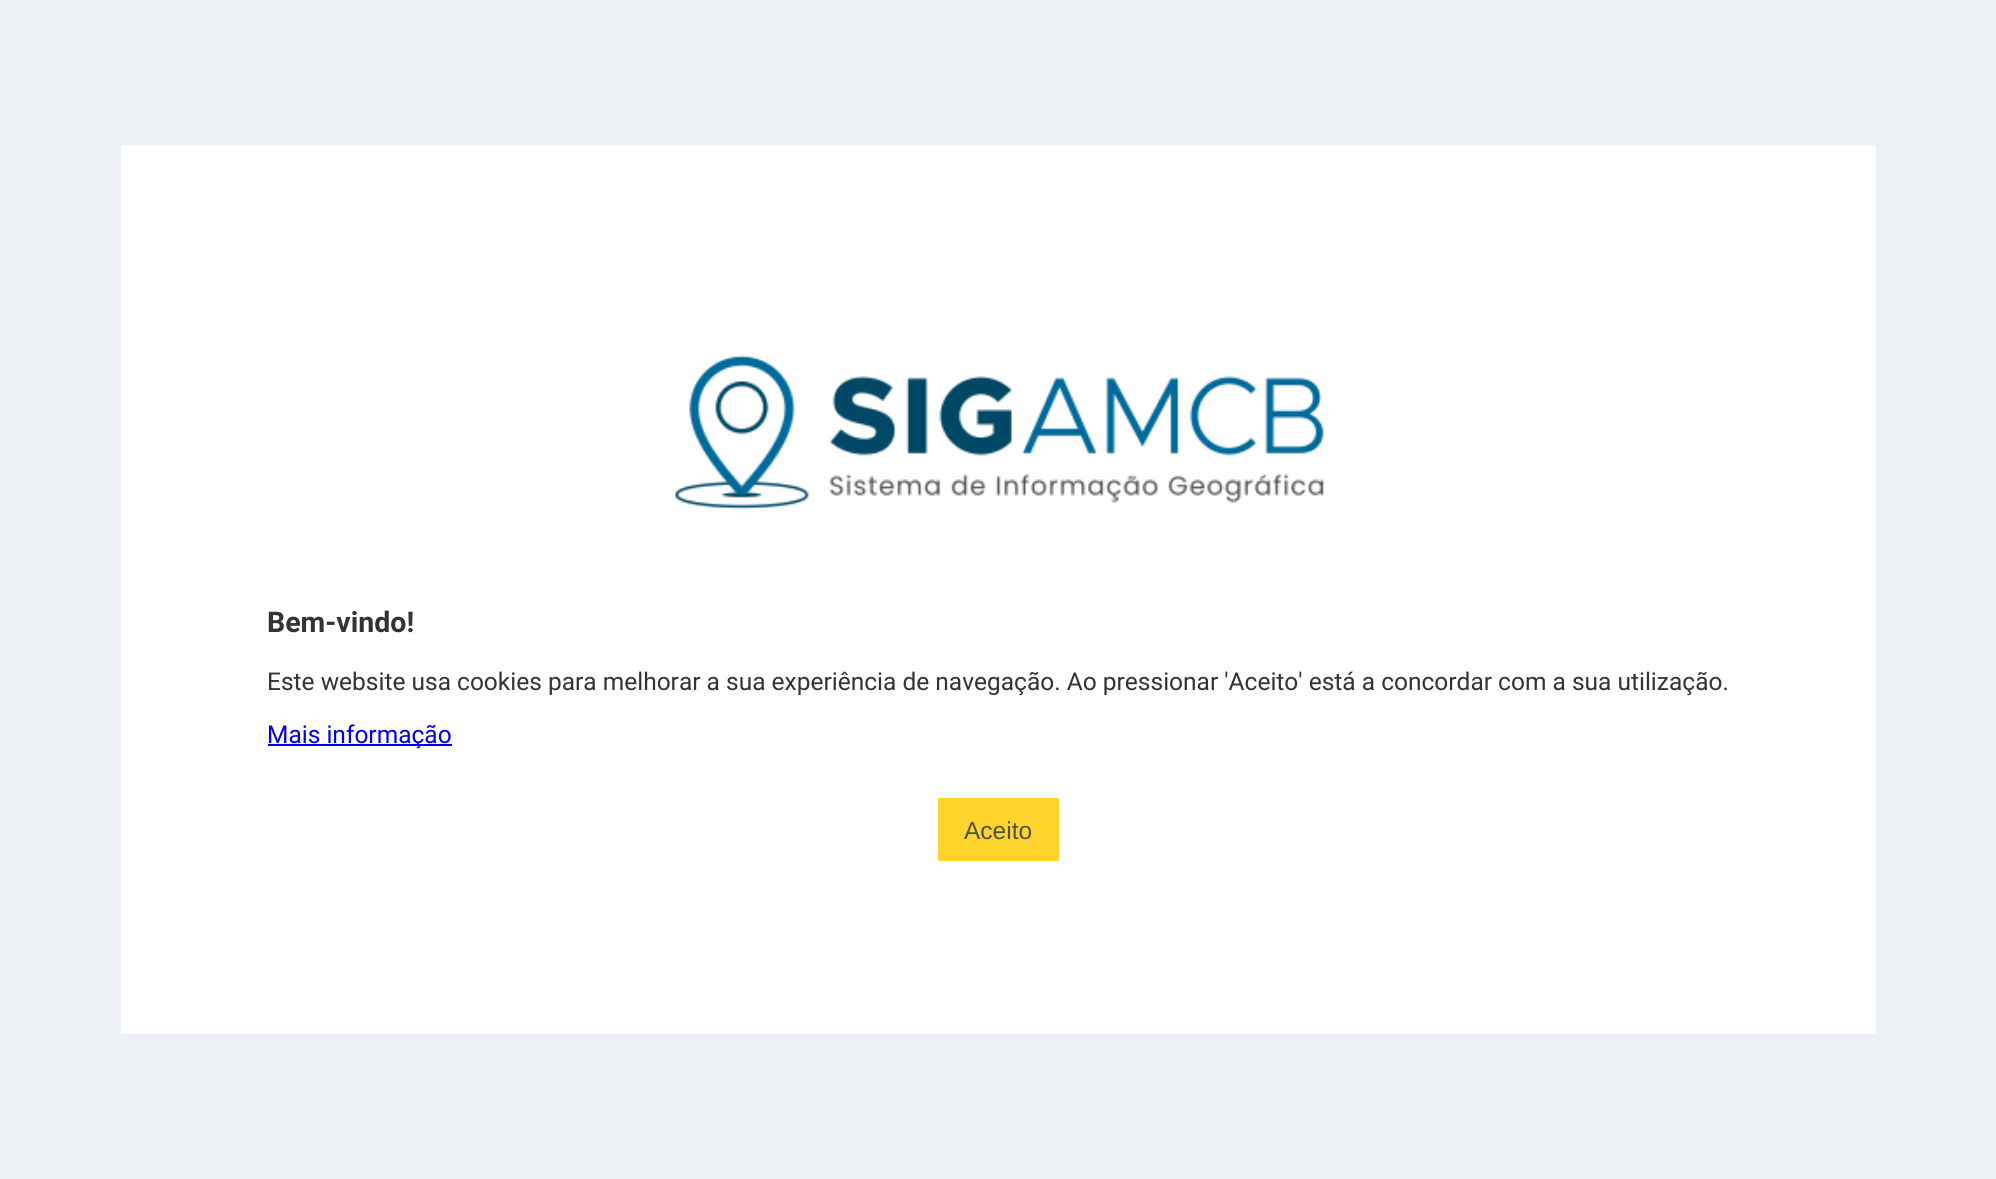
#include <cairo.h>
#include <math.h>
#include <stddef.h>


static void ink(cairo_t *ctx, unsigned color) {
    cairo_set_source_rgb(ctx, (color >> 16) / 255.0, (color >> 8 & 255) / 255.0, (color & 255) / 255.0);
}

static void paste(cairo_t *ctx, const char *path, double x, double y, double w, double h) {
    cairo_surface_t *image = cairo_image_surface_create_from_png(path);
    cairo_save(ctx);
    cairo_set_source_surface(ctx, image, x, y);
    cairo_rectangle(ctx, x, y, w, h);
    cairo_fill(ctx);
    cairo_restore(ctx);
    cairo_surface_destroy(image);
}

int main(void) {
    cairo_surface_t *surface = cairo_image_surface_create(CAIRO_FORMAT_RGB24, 1996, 1179);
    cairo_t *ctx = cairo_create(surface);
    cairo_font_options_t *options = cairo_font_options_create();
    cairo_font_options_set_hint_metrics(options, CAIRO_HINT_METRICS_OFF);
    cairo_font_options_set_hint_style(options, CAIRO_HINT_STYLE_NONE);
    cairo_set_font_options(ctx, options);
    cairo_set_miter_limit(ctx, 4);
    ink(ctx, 0xEDF0F5);
    cairo_paint(ctx);
    ink(ctx, 0xFFFFFF);
    cairo_rectangle(ctx, 121, 145, 1755, 889);
    cairo_fill(ctx);
    paste(ctx, "media/1.png", 675, 355, 649, 155);
    cairo_select_font_face(ctx, "Roboto", CAIRO_FONT_SLANT_NORMAL, CAIRO_FONT_WEIGHT_BOLD);
    cairo_set_font_size(ctx, 28.5);
    ink(ctx, 0x333333);
    cairo_move_to(ctx, 267, 632);
    cairo_show_text(ctx, "Bem-vindo!");
    cairo_select_font_face(ctx, "Roboto", CAIRO_FONT_SLANT_NORMAL, CAIRO_FONT_WEIGHT_NORMAL);
    cairo_set_font_size(ctx, 24.5);
    cairo_move_to(ctx, 267, 690);
    cairo_show_text(ctx, "Este website usa cookies para melhorar a sua experiência de navegação. Ao pressionar 'Aceito' está a concordar com a sua utilização.");
    ink(ctx, 0x0000EE);
    cairo_rectangle(ctx, 268, 744, 184, 2);
    cairo_fill(ctx);
    cairo_move_to(ctx, 267, 743);
    cairo_show_text(ctx, "Mais informação");
    ink(ctx, 0xFFD42D);
    cairo_rectangle(ctx, 938, 798, 121, 63);
    cairo_fill(ctx);
    cairo_select_font_face(ctx, "Liberation Sans", CAIRO_FONT_SLANT_NORMAL, CAIRO_FONT_WEIGHT_NORMAL);
    ink(ctx, 0x4E503B);
    cairo_move_to(ctx, 964, 839);
    cairo_show_text(ctx, "Aceito");
    cairo_surface_write_to_png(surface, "image.png");
    cairo_font_options_destroy(options);
    cairo_destroy(ctx);
    cairo_surface_destroy(surface);
    return 0;
}
